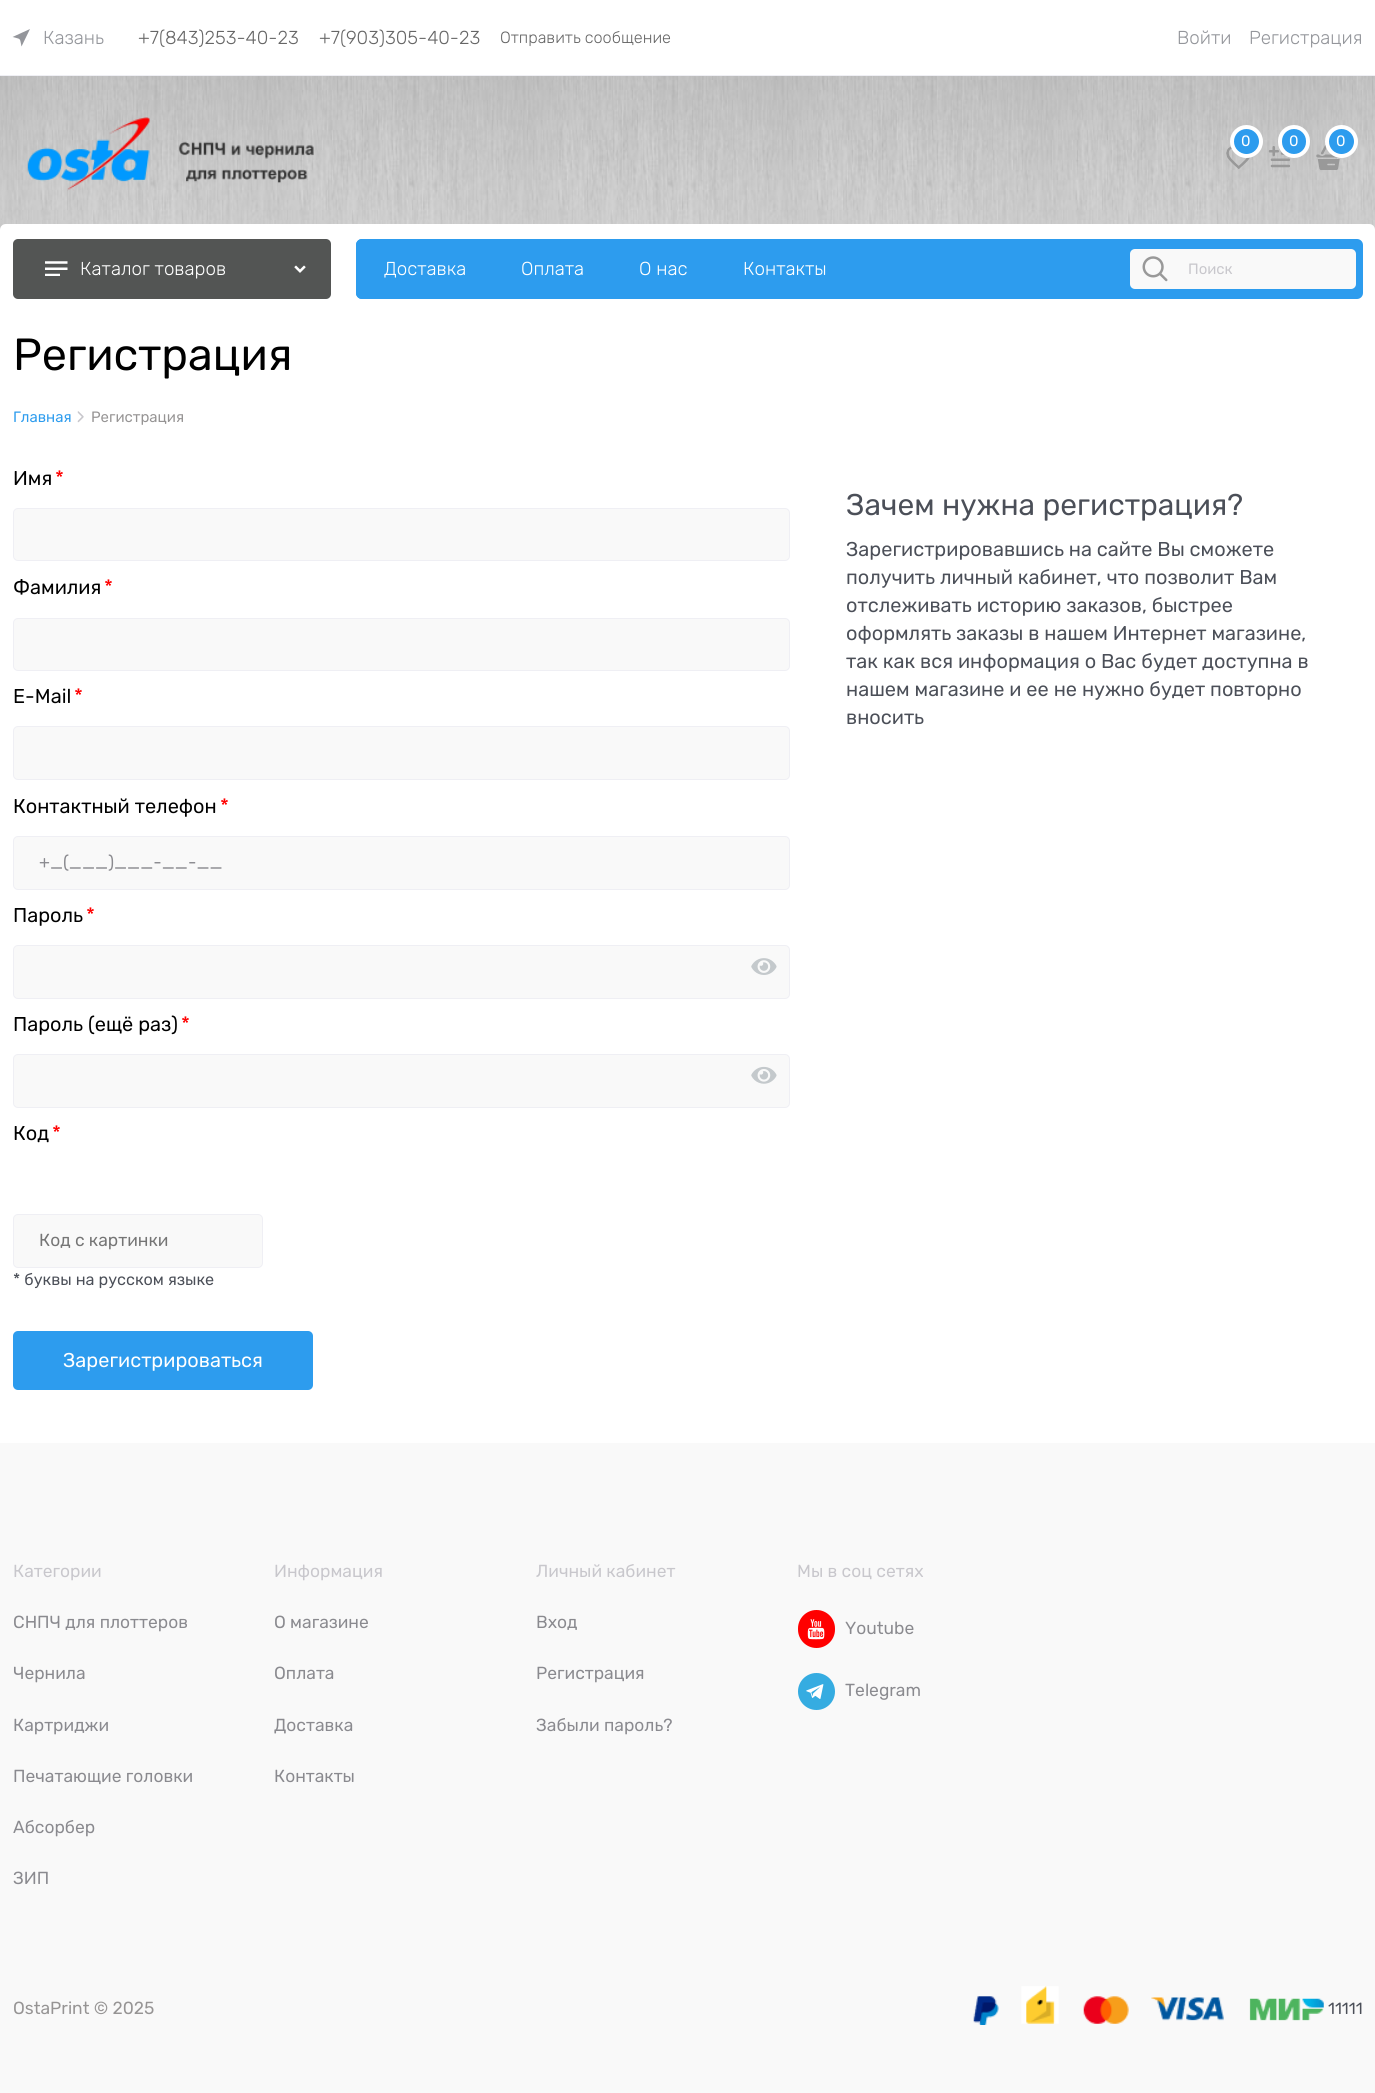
#include <cairo.h>
#include <math.h>
#include <stddef.h>

typedef struct { double x, y; const char *s; } line_t;

static void ink(cairo_t *ctx, unsigned color) {
    cairo_set_source_rgb(ctx, (color >> 16) / 255.0, (color >> 8 & 255) / 255.0, (color & 255) / 255.0);
}

static void round_path(cairo_t *ctx, double x, double y, double w, double h, double r) {
    cairo_new_sub_path(ctx);
    cairo_arc(ctx, x + w - r, y + h - r, r, 0, M_PI / 2);
    cairo_arc(ctx, x + r, y + h - r, r, M_PI / 2, M_PI);
    cairo_arc(ctx, x + r, y + r, r, M_PI, 1.5 * M_PI);
    cairo_arc(ctx, x + w - r, y + r, r, 1.5 * M_PI, 2 * M_PI);
    cairo_close_path(ctx);
}

static void paste(cairo_t *ctx, const char *path, double x, double y, double w, double h) {
    cairo_surface_t *image = cairo_image_surface_create_from_png(path);
    cairo_save(ctx);
    cairo_set_source_surface(ctx, image, x, y);
    cairo_rectangle(ctx, x, y, w, h);
    cairo_fill(ctx);
    cairo_restore(ctx);
    cairo_surface_destroy(image);
}

int main(void) {
    cairo_surface_t *surface = cairo_image_surface_create(CAIRO_FORMAT_RGB24, 1375, 2093);
    cairo_t *ctx = cairo_create(surface);
    cairo_font_options_t *options = cairo_font_options_create();
    cairo_font_options_set_hint_metrics(options, CAIRO_HINT_METRICS_OFF);
    cairo_font_options_set_hint_style(options, CAIRO_HINT_STYLE_NONE);
    cairo_set_font_options(ctx, options);
    cairo_set_miter_limit(ctx, 4);
    ink(ctx, 0xFFFFFF);
    cairo_paint(ctx);
    paste(ctx, "media/1.png", 0, 76, 1375, 154);
    ink(ctx, 0xEFEFF4);
    cairo_rectangle(ctx, 0, 75, 1375, 1);
    cairo_fill(ctx);
    ink(ctx, 0x94969B);
    cairo_new_path(ctx);
    cairo_move_to(ctx, 12.5, 37);
    cairo_curve_to(ctx, 21.5, 39.5, 19.5, 37.5, 21.5, 46.5);
    cairo_line_to(ctx, 30, 29);
    cairo_close_path(ctx);
    cairo_fill(ctx);
    cairo_select_font_face(ctx, "Rubik Light", CAIRO_FONT_SLANT_NORMAL, CAIRO_FONT_WEIGHT_NORMAL);
    cairo_set_font_size(ctx, 18.75);
    cairo_move_to(ctx, 43, 44);
    cairo_show_text(ctx, "Казань");
    ink(ctx, 0x666666);
    cairo_move_to(ctx, 138, 44);
    cairo_show_text(ctx, "+7(843)253-40-23");
    cairo_move_to(ctx, 319, 44);
    cairo_show_text(ctx, "+7(903)305-40-23");
    cairo_set_font_size(ctx, 16.25);
    cairo_move_to(ctx, 500, 43);
    cairo_show_text(ctx, "Отправить сообщение");
    cairo_set_font_size(ctx, 18.75);
    ink(ctx, 0x94969B);
    cairo_move_to(ctx, 1177, 44);
    cairo_show_text(ctx, "Войти");
    cairo_move_to(ctx, 1249, 44);
    cairo_show_text(ctx, "Регистрация");
    paste(ctx, "media/2.png", 27, 117, 287, 74);
    paste(ctx, "media/3.png", 1226, 146, 25, 23);
    ink(ctx, 0x2D9CEE);
    cairo_arc(ctx, 1246.5, 141.5, 14.5, 0, 2 * M_PI);
    cairo_fill_preserve(ctx);
    ink(ctx, 0xFFFFFF);
    cairo_set_line_width(ctx, 4);
    cairo_stroke(ctx);
    cairo_select_font_face(ctx, "Rubik", CAIRO_FONT_SLANT_NORMAL, CAIRO_FONT_WEIGHT_NORMAL);
    cairo_set_font_size(ctx, 15);
    cairo_move_to(ctx, 1241, 146);
    cairo_show_text(ctx, "0");
    paste(ctx, "media/4.png", 1268, 146, 23, 22);
    ink(ctx, 0x2D9CEE);
    round_path(ctx, 1280, 127, 28, 29, 14);
    cairo_fill_preserve(ctx);
    ink(ctx, 0xFFFFFF);
    cairo_stroke(ctx);
    cairo_move_to(ctx, 1289, 146);
    cairo_show_text(ctx, "0");
    paste(ctx, "media/5.png", 1316, 145, 25, 25);
    ink(ctx, 0x2D9CEE);
    cairo_arc(ctx, 1341.5, 141.5, 14.5, 0, 2 * M_PI);
    cairo_fill_preserve(ctx);
    ink(ctx, 0xFFFFFF);
    cairo_stroke(ctx);
    cairo_move_to(ctx, 1336, 146);
    cairo_show_text(ctx, "0");
    cairo_new_path(ctx);
    cairo_move_to(ctx, 6, 224);
    cairo_line_to(ctx, 1369, 224);
    cairo_curve_to(ctx, 1372.5, 224, 1375, 226.5, 1375, 230);
    cairo_line_to(ctx, 1375, 314);
    cairo_line_to(ctx, 0, 314);
    cairo_line_to(ctx, 0, 230);
    cairo_curve_to(ctx, 0, 226.5, 2.5, 224, 6, 224);
    cairo_close_path(ctx);
    cairo_fill(ctx);
    ink(ctx, 0x535554);
    round_path(ctx, 13, 239, 318, 60, 5);
    cairo_fill(ctx);
    paste(ctx, "media/6.png", 45, 261, 23, 15);
    cairo_select_font_face(ctx, "Rubik Light", CAIRO_FONT_SLANT_NORMAL, CAIRO_FONT_WEIGHT_NORMAL);
    cairo_set_font_size(ctx, 18.75);
    ink(ctx, 0xFFFFFF);
    cairo_move_to(ctx, 80, 275);
    cairo_show_text(ctx, "Каталог товаров");
    paste(ctx, "media/7.png", 294, 265, 12, 8);
    ink(ctx, 0x2D9CEE);
    round_path(ctx, 356, 239, 1007, 60, 6);
    cairo_fill(ctx);
    round_path(ctx, 356, 239, 749, 60, 6);
    cairo_fill(ctx);
    ink(ctx, 0xFFFFFF);
    {
        static const line_t items[] = {
            {384, 275, "Доставка"},
            {521, 275, "Оплата"},
            {639, 275, "О нас"},
            {743, 275, "Контакты"},
        };
        for (size_t i = 0; i < sizeof items / sizeof *items; i++) {
            cairo_move_to(ctx, items[i].x, items[i].y);
            cairo_show_text(ctx, items[i].s);
        }
    }
    ink(ctx, 0xF9F9F9);
    round_path(ctx, 1130, 249, 226, 40, 5);
    cairo_fill(ctx);
    paste(ctx, "media/8.png", 1142, 256, 26, 26);
    cairo_select_font_face(ctx, "Rubik", CAIRO_FONT_SLANT_NORMAL, CAIRO_FONT_WEIGHT_NORMAL);
    cairo_set_font_size(ctx, 15);
    ink(ctx, 0xC8C7CC);
    cairo_move_to(ctx, 1188, 274);
    cairo_show_text(ctx, "Поиск");
    cairo_set_font_size(ctx, 45);
    ink(ctx, 0x000000);
    cairo_move_to(ctx, 13, 370);
    cairo_show_text(ctx, "Регистрация");
    cairo_set_font_size(ctx, 15);
    ink(ctx, 0x2D9CEE);
    cairo_move_to(ctx, 13, 422);
    cairo_show_text(ctx, "Главная");
    paste(ctx, "media/9.png", 77, 411, 7, 12);
    ink(ctx, 0x969494);
    cairo_move_to(ctx, 91, 422);
    cairo_show_text(ctx, "Регистрация");
    cairo_set_font_size(ctx, 20);
    ink(ctx, 0x000000);
    cairo_move_to(ctx, 13, 485);
    cairo_show_text(ctx, "Имя");
    ink(ctx, 0xFF0000);
    cairo_move_to(ctx, 55, 485);
    cairo_show_text(ctx, "*");
    ink(ctx, 0xF9F9F9);
    round_path(ctx, 13.5, 508.5, 776, 52, 4.5);
    cairo_fill_preserve(ctx);
    ink(ctx, 0xEFEFF4);
    cairo_set_line_width(ctx, 1);
    cairo_stroke(ctx);
    ink(ctx, 0x000000);
    cairo_move_to(ctx, 13, 594);
    cairo_show_text(ctx, "Фамилия");
    ink(ctx, 0xFF0000);
    cairo_move_to(ctx, 104, 594);
    cairo_show_text(ctx, "*");
    ink(ctx, 0xF9F9F9);
    round_path(ctx, 13.5, 618.5, 776, 52, 4.5);
    cairo_fill_preserve(ctx);
    ink(ctx, 0xEFEFF4);
    cairo_stroke(ctx);
    ink(ctx, 0x000000);
    cairo_move_to(ctx, 13, 703);
    cairo_show_text(ctx, "E-Mail");
    ink(ctx, 0xFF0000);
    cairo_move_to(ctx, 74, 703);
    cairo_show_text(ctx, "*");
    ink(ctx, 0xF9F9F9);
    round_path(ctx, 13.5, 726.5, 776, 53, 4.5);
    cairo_fill_preserve(ctx);
    ink(ctx, 0xEFEFF4);
    cairo_stroke(ctx);
    ink(ctx, 0x000000);
    cairo_move_to(ctx, 13, 813);
    cairo_show_text(ctx, "Контактный телефон");
    ink(ctx, 0xFF0000);
    cairo_move_to(ctx, 220, 813);
    cairo_show_text(ctx, "*");
    ink(ctx, 0xF9F9F9);
    round_path(ctx, 13.5, 836.5, 776, 53, 4.5);
    cairo_fill_preserve(ctx);
    ink(ctx, 0xEFEFF4);
    cairo_stroke(ctx);
    cairo_set_font_size(ctx, 17.5);
    ink(ctx, 0x8A8A8F);
    cairo_move_to(ctx, 39, 868);
    cairo_show_text(ctx, "+_(___)___-__-__");
    cairo_set_font_size(ctx, 20);
    ink(ctx, 0x000000);
    cairo_move_to(ctx, 13, 922);
    cairo_show_text(ctx, "Пароль");
    ink(ctx, 0xFF0000);
    cairo_move_to(ctx, 86, 922);
    cairo_show_text(ctx, "*");
    ink(ctx, 0xF9F9F9);
    round_path(ctx, 13.5, 945.5, 776, 53, 4.5);
    cairo_fill_preserve(ctx);
    ink(ctx, 0xEFEFF4);
    cairo_stroke(ctx);
    paste(ctx, "media/10.png", 751, 958, 26, 17);
    ink(ctx, 0x000000);
    cairo_move_to(ctx, 13, 1031);
    cairo_show_text(ctx, "Пароль (ещё раз)");
    ink(ctx, 0xFF0000);
    cairo_move_to(ctx, 181, 1031);
    cairo_show_text(ctx, "*");
    ink(ctx, 0xF9F9F9);
    round_path(ctx, 13.5, 1054.5, 776, 53, 4.5);
    cairo_fill_preserve(ctx);
    ink(ctx, 0xEFEFF4);
    cairo_stroke(ctx);
    paste(ctx, "media/11.png", 751, 1066, 26, 18);
    ink(ctx, 0x000000);
    cairo_move_to(ctx, 13, 1140);
    cairo_show_text(ctx, "Код");
    ink(ctx, 0xFF0000);
    cairo_move_to(ctx, 52, 1140);
    cairo_show_text(ctx, "*");
    ink(ctx, 0xF9F9F9);
    round_path(ctx, 13.5, 1214.5, 249, 53, 4.5);
    cairo_fill_preserve(ctx);
    ink(ctx, 0xEFEFF4);
    cairo_stroke(ctx);
    cairo_set_font_size(ctx, 17.5);
    ink(ctx, 0x757575);
    cairo_move_to(ctx, 39, 1246);
    cairo_show_text(ctx, "Код с картинки");
    cairo_set_font_size(ctx, 16.25);
    ink(ctx, 0x4B4F58);
    cairo_move_to(ctx, 13, 1285);
    cairo_show_text(ctx, "* буквы на русском языке");
    ink(ctx, 0x2D9CEE);
    round_path(ctx, 13, 1331, 300, 59, 5);
    cairo_fill(ctx);
    cairo_set_font_size(ctx, 20);
    ink(ctx, 0xFFFFFF);
    cairo_move_to(ctx, 63, 1367);
    cairo_show_text(ctx, "Зарегистрироваться");
    cairo_set_font_size(ctx, 30);
    ink(ctx, 0x4B4F58);
    cairo_move_to(ctx, 846, 515);
    cairo_show_text(ctx, "Зачем нужна регистрация?");
    cairo_set_font_size(ctx, 20);
    {
        static const line_t items[] = {
            {846, 556, "Зарегистрировавшись на сайте Вы сможете"},
            {846, 584, "получить личный кабинет, что позволит Вам"},
            {846, 612, "отслеживать историю заказов, быстрее"},
            {846, 640, "оформлять заказы в нашем Интернет магазине,"},
            {846, 668, "так как вся информация о Вас будет доступна в"},
            {846, 696, "нашем магазине и ее не нужно будет повторно"},
            {846, 724, "вносить"},
        };
        for (size_t i = 0; i < sizeof items / sizeof *items; i++) {
            cairo_move_to(ctx, items[i].x, items[i].y);
            cairo_show_text(ctx, items[i].s);
        }
    }
    ink(ctx, 0xF9F9F9);
    cairo_rectangle(ctx, 0, 1443, 1375, 650);
    cairo_fill(ctx);
    cairo_set_font_size(ctx, 17.5);
    ink(ctx, 0xC8C7CC);
    cairo_move_to(ctx, 13, 1577);
    cairo_show_text(ctx, "Категории");
    ink(ctx, 0x8A8A8F);
    {
        static const line_t items[] = {
            {13, 1628, "СНПЧ для плоттеров"},
            {13, 1679, "Чернила"},
            {13, 1731, "Картриджи"},
            {13, 1782, "Печатающие головки"},
            {13, 1833, "Абсорбер"},
            {13, 1884, "ЗИП"},
        };
        for (size_t i = 0; i < sizeof items / sizeof *items; i++) {
            cairo_move_to(ctx, items[i].x, items[i].y);
            cairo_show_text(ctx, items[i].s);
        }
    }
    ink(ctx, 0xC8C7CC);
    cairo_move_to(ctx, 274, 1577);
    cairo_show_text(ctx, "Информация");
    ink(ctx, 0x8A8A8F);
    {
        static const line_t items[] = {
            {274, 1628, "О магазине"},
            {274, 1679, "Оплата"},
            {274, 1731, "Доставка"},
            {274, 1782, "Контакты"},
        };
        for (size_t i = 0; i < sizeof items / sizeof *items; i++) {
            cairo_move_to(ctx, items[i].x, items[i].y);
            cairo_show_text(ctx, items[i].s);
        }
    }
    ink(ctx, 0xC8C7CC);
    cairo_move_to(ctx, 536, 1577);
    cairo_show_text(ctx, "Личный кабинет");
    ink(ctx, 0x8A8A8F);
    {
        static const line_t items[] = {
            {536, 1628, "Вход"},
            {536, 1679, "Регистрация"},
            {536, 1731, "Забыли пароль?"},
        };
        for (size_t i = 0; i < sizeof items / sizeof *items; i++) {
            cairo_move_to(ctx, items[i].x, items[i].y);
            cairo_show_text(ctx, items[i].s);
        }
    }
    ink(ctx, 0xC8C7CC);
    cairo_move_to(ctx, 797, 1577);
    cairo_show_text(ctx, "Мы в соц сетях");
    ink(ctx, 0xFF0000);
    round_path(ctx, 798, 1610, 37, 38, 18.5);
    cairo_fill(ctx);
    paste(ctx, "media/12.png", 807, 1619, 18, 21);
    ink(ctx, 0x8A8A8F);
    cairo_move_to(ctx, 845, 1634);
    cairo_show_text(ctx, "Youtube");
    ink(ctx, 0x35ACE1);
    cairo_new_path(ctx);
    cairo_arc(ctx, 816.5, 1691.5, 18.5, 0, 2 * M_PI);
    cairo_fill(ctx);
    paste(ctx, "media/13.png", 806, 1684, 18, 15);
    ink(ctx, 0x8A8A8F);
    cairo_move_to(ctx, 845, 1696);
    cairo_show_text(ctx, "Telegram");
    ink(ctx, 0x969494);
    cairo_move_to(ctx, 13, 2014);
    cairo_show_text(ctx, "OstaPrint © 2025");
    paste(ctx, "media/14.png", 973, 1986, 351, 39);
    cairo_set_font_size(ctx, 16.25);
    ink(ctx, 0x4B4F58);
    cairo_move_to(ctx, 1328, 2014);
    cairo_show_text(ctx, "11111");
    cairo_surface_write_to_png(surface, "image.png");
    cairo_font_options_destroy(options);
    cairo_destroy(ctx);
    cairo_surface_destroy(surface);
    return 0;
}
